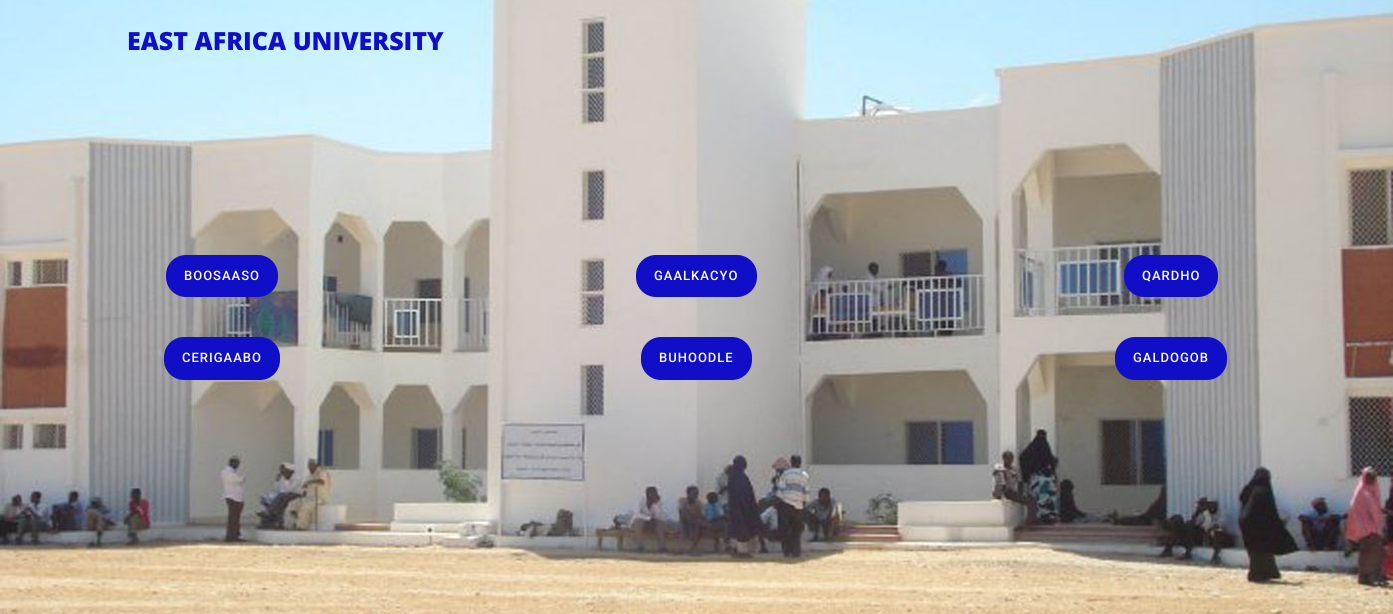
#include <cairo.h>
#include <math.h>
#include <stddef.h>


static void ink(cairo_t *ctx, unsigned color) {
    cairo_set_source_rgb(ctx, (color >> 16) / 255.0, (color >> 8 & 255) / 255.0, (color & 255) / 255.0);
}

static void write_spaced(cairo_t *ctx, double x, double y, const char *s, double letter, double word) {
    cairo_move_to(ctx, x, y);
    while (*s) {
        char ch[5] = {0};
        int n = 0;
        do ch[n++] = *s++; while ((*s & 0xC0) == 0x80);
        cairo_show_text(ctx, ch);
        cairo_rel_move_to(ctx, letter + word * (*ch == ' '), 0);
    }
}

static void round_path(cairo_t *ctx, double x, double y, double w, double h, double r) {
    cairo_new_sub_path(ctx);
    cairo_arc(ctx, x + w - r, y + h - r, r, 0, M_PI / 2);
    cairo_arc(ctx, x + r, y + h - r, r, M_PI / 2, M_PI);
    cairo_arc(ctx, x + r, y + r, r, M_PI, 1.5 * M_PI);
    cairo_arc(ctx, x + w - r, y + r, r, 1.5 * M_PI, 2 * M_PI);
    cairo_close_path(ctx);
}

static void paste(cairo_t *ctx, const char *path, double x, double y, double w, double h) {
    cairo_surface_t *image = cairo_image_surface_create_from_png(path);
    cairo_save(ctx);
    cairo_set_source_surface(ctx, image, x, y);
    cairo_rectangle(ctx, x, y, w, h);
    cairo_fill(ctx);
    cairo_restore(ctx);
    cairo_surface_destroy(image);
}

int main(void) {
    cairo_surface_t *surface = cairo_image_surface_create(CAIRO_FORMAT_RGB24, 1393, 614);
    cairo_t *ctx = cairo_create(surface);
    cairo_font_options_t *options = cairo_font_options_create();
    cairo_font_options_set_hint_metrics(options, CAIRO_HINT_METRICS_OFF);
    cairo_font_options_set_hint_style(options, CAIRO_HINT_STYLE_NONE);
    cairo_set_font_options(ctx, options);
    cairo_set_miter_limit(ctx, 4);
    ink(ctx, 0xFFFFFF);
    cairo_paint(ctx);
    paste(ctx, "media/1.png", 0, 0, 1393, 614);
    cairo_select_font_face(ctx, "Open Sans ExtraBold", CAIRO_FONT_SLANT_NORMAL, CAIRO_FONT_WEIGHT_NORMAL);
    cairo_set_font_size(ctx, 25);
    ink(ctx, 0x110EC7);
    cairo_move_to(ctx, 127, 50);
    cairo_show_text(ctx, "EAST AFRICA UNIVERSITY");
    round_path(ctx, 166, 255, 112, 42, 20);
    cairo_fill(ctx);
    cairo_select_font_face(ctx, "Roboto Medium", CAIRO_FONT_SLANT_NORMAL, CAIRO_FONT_WEIGHT_NORMAL);
    cairo_set_font_size(ctx, 13);
    ink(ctx, 0xFFFFFF);
    write_spaced(ctx, 184, 280, "BOOSAASO", 1, 0);
    ink(ctx, 0x110EC7);
    round_path(ctx, 636, 255, 121, 42, 20);
    cairo_fill(ctx);
    ink(ctx, 0xFFFFFF);
    write_spaced(ctx, 654, 280, "GAALKACYO", 1, 0);
    ink(ctx, 0x110EC7);
    round_path(ctx, 1124, 255, 94, 42, 20);
    cairo_fill(ctx);
    ink(ctx, 0xFFFFFF);
    write_spaced(ctx, 1142, 280, "QARDHO", 1, 0);
    ink(ctx, 0x110EC7);
    round_path(ctx, 164, 337, 116, 43, 20);
    cairo_fill(ctx);
    ink(ctx, 0xFFFFFF);
    write_spaced(ctx, 182, 362, "CERIGAABO", 1, 0);
    ink(ctx, 0x110EC7);
    round_path(ctx, 641, 337, 111, 43, 20);
    cairo_fill(ctx);
    ink(ctx, 0xFFFFFF);
    write_spaced(ctx, 659, 362, "BUHOODLE", 1, 0);
    ink(ctx, 0x110EC7);
    round_path(ctx, 1115, 337, 112, 43, 20);
    cairo_fill(ctx);
    ink(ctx, 0xFFFFFF);
    write_spaced(ctx, 1133, 362, "GALDOGOB", 1, 0);
    cairo_surface_write_to_png(surface, "image.png");
    cairo_font_options_destroy(options);
    cairo_destroy(ctx);
    cairo_surface_destroy(surface);
    return 0;
}
